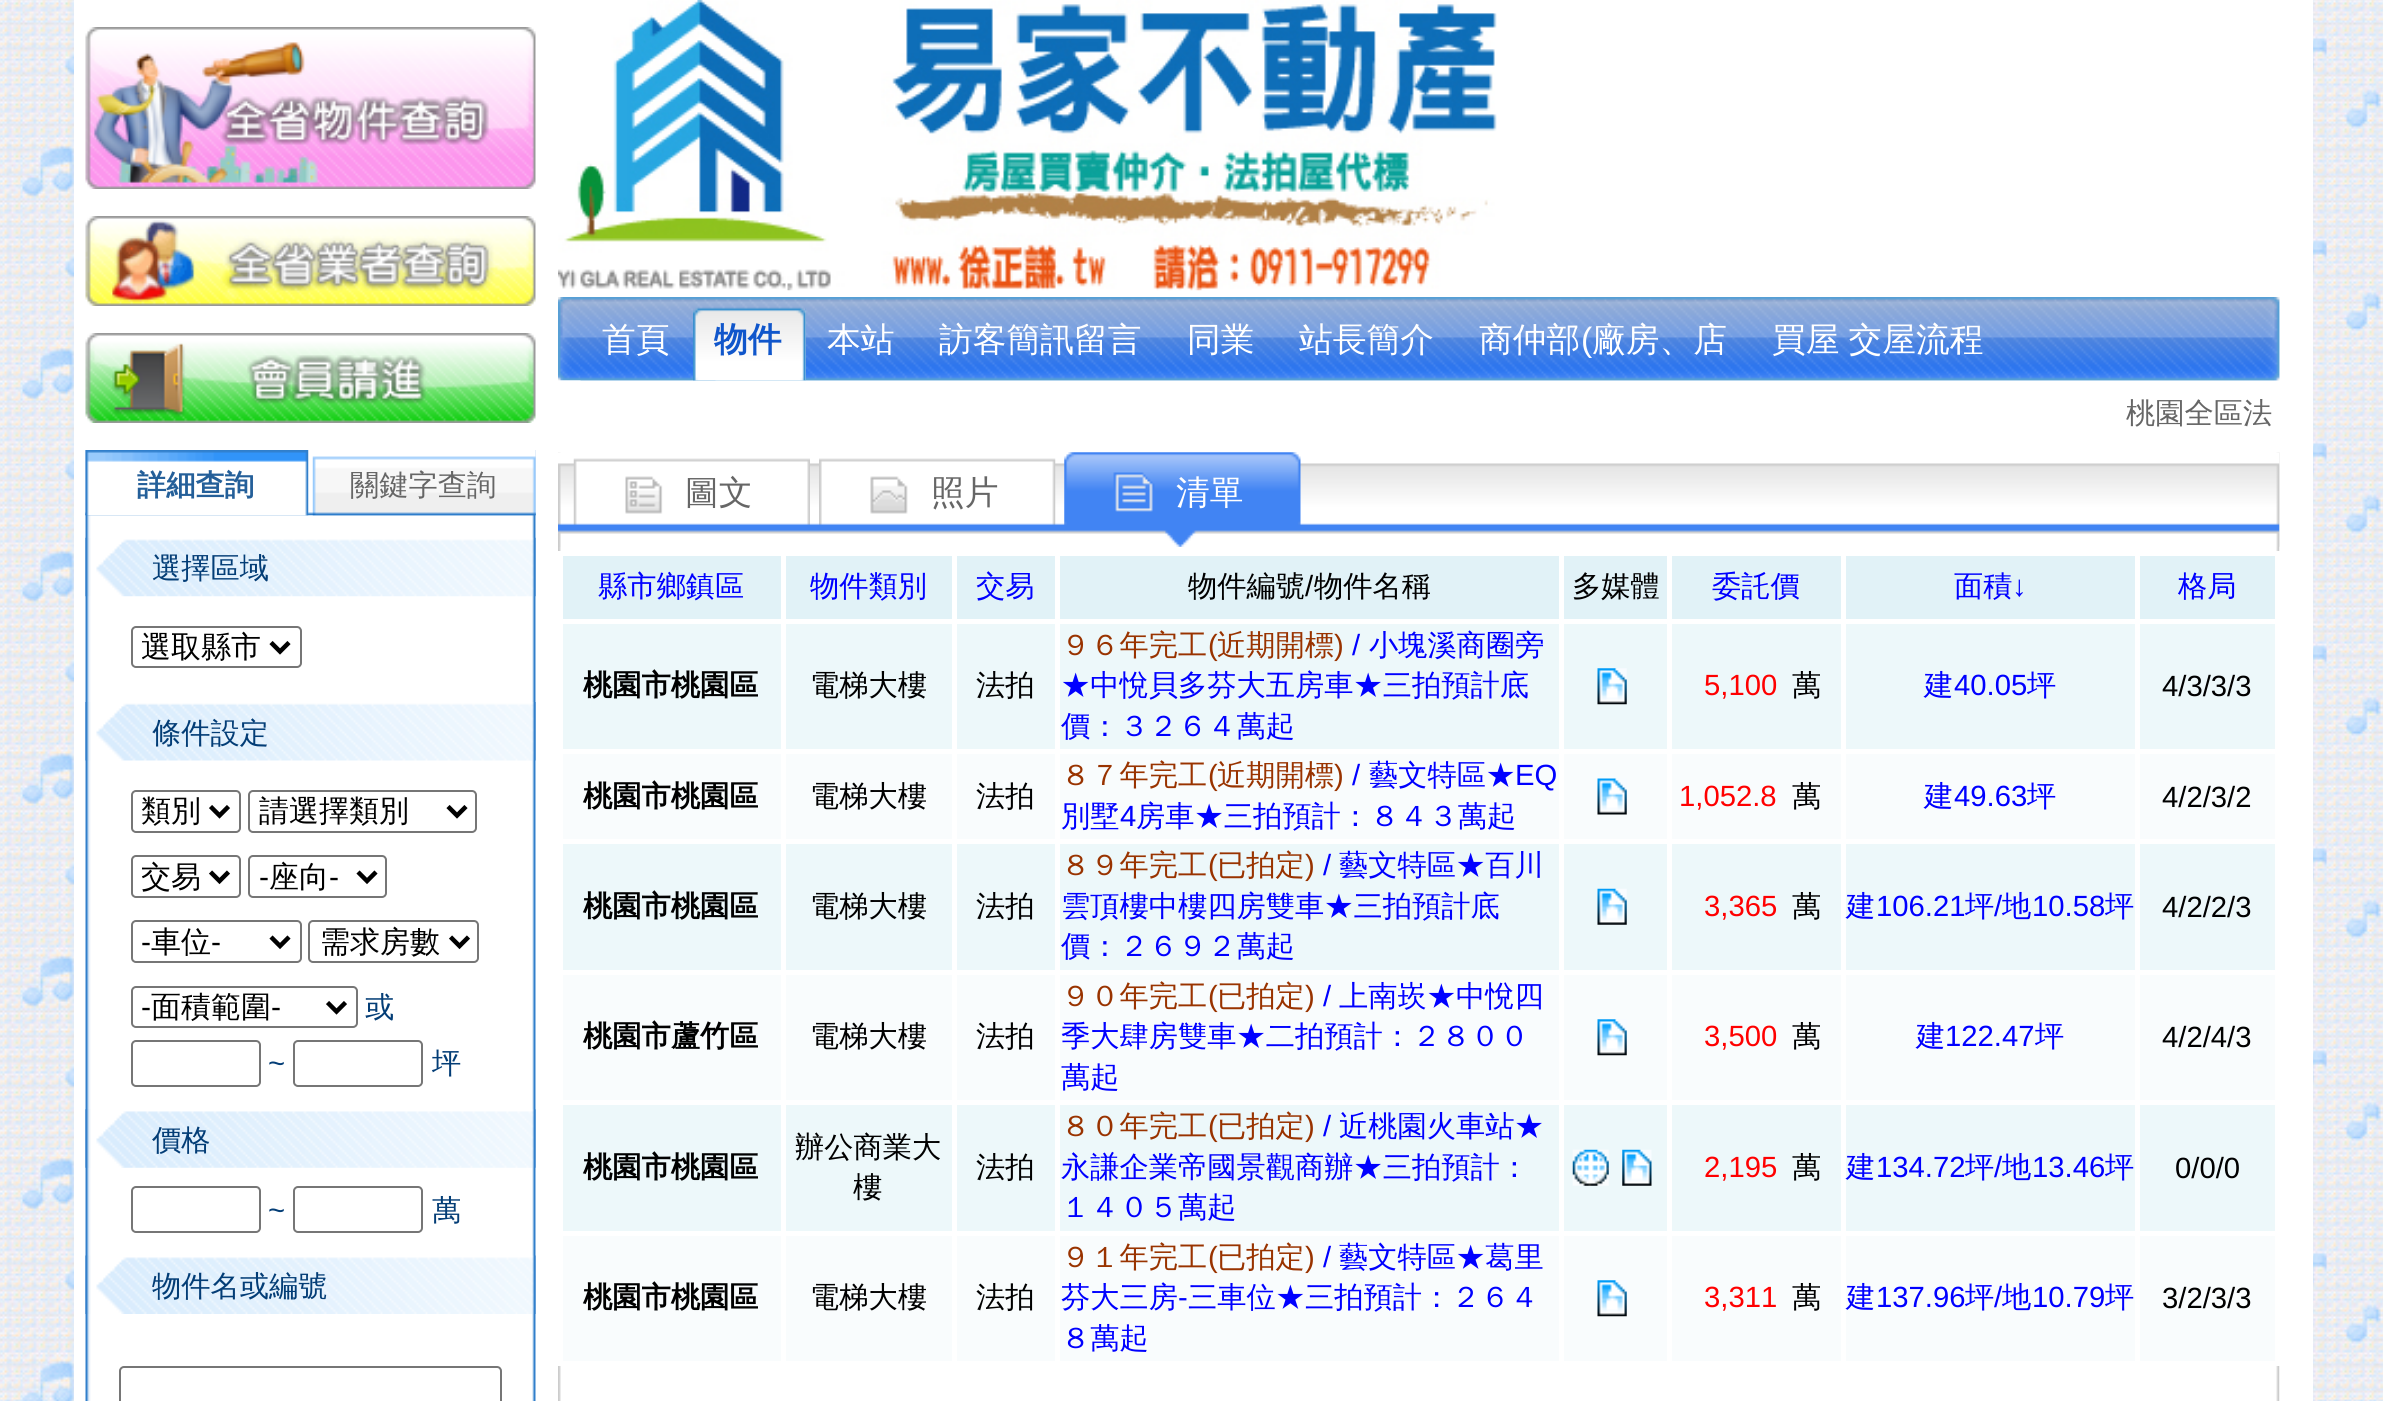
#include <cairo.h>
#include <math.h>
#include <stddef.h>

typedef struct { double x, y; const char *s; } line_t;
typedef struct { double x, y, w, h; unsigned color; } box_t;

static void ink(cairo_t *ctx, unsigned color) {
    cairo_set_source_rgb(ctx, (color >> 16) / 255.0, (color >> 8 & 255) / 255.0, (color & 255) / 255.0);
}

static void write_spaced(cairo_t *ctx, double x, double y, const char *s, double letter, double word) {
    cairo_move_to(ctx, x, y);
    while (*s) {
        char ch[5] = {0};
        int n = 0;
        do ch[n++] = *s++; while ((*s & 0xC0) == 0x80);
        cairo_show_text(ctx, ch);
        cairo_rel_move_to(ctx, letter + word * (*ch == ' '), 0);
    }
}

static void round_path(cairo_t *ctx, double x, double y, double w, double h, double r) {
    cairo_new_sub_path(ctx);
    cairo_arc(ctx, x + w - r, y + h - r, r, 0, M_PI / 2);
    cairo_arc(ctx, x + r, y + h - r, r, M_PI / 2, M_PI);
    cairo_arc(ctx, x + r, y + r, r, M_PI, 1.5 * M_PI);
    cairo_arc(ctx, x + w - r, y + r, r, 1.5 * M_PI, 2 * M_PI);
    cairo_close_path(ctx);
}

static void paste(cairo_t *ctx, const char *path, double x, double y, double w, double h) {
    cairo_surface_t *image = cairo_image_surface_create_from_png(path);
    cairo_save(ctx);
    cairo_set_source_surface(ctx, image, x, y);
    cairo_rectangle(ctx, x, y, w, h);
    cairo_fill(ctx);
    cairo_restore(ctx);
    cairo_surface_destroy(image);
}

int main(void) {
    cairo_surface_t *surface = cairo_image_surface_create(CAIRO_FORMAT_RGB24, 2383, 1401);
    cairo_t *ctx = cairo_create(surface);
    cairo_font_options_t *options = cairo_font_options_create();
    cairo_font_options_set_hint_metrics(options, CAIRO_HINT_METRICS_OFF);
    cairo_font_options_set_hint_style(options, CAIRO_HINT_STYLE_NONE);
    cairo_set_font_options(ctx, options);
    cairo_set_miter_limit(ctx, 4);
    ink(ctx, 0xFFFFFF);
    cairo_paint(ctx);
    paste(ctx, "media/1.png", 0, 0, 2383, 1401);
    ink(ctx, 0xFFFFFF);
    cairo_rectangle(ctx, 74, 0, 2239, 1401);
    cairo_fill(ctx);
    paste(ctx, "media/2.png", 85, 27, 451, 162);
    paste(ctx, "media/3.png", 85, 216, 451, 90);
    paste(ctx, "media/4.png", 85, 333, 451, 90);
    paste(ctx, "media/5.png", 85, 450, 451, 951);
    paste(ctx, "media/6.png", 85, 450, 451, 66);
    paste(ctx, "media/7.png", 85, 450, 224, 66);
    cairo_select_font_face(ctx, "WenQuanYi Zen Hei", CAIRO_FONT_SLANT_NORMAL, CAIRO_FONT_WEIGHT_BOLD);
    cairo_set_font_size(ctx, 29.25);
    ink(ctx, 0x245F99);
    cairo_move_to(ctx, 137, 495);
    cairo_show_text(ctx, "詳細查詢");
    paste(ctx, "media/8.png", 312, 450, 224, 66);
    cairo_select_font_face(ctx, "WenQuanYi Zen Hei Medium", CAIRO_FONT_SLANT_NORMAL, CAIRO_FONT_WEIGHT_NORMAL);
    ink(ctx, 0x666666);
    cairo_move_to(ctx, 350, 495);
    cairo_show_text(ctx, "關鍵字查詢");
    paste(ctx, "media/9.png", 85, 537, 451, 60);
    ink(ctx, 0x033D76);
    cairo_move_to(ctx, 152, 578);
    cairo_show_text(ctx, "選擇區域");
    round_path(ctx, 132, 627, 169, 40, 4);
    ink(ctx, 0x767676);
    cairo_stroke(ctx);
    cairo_new_path(ctx);
    cairo_move_to(ctx, 271, 642.5);
    cairo_line_to(ctx, 280, 651.5);
    cairo_line_to(ctx, 289, 642.5);
    ink(ctx, 0x000000);
    cairo_set_line_width(ctx, 4.5);
    cairo_stroke(ctx);
    cairo_save(ctx);
    cairo_rectangle(ctx, 142, 628, 121, 38);
    cairo_clip(ctx);
    cairo_set_font_size(ctx, 30);
    cairo_move_to(ctx, 141, 657);
    cairo_show_text(ctx, "選取縣市");
    cairo_restore(ctx);
    paste(ctx, "media/10.png", 85, 702, 451, 59);
    ink(ctx, 0x033D76);
    cairo_move_to(ctx, 152, 743);
    cairo_show_text(ctx, "條件設定");
    round_path(ctx, 132, 791, 108, 41, 4);
    ink(ctx, 0x767676);
    cairo_set_line_width(ctx, 2);
    cairo_stroke(ctx);
    cairo_new_path(ctx);
    cairo_move_to(ctx, 210.5, 806.5);
    cairo_line_to(ctx, 219.5, 815.5);
    cairo_line_to(ctx, 228.5, 806.5);
    ink(ctx, 0x000000);
    cairo_set_line_width(ctx, 4.5);
    cairo_stroke(ctx);
    cairo_set_font_size(ctx, 30);
    cairo_move_to(ctx, 141, 821);
    cairo_show_text(ctx, "類別");
    round_path(ctx, 249, 791, 227, 41, 4);
    ink(ctx, 0x767676);
    cairo_set_line_width(ctx, 2);
    cairo_stroke(ctx);
    cairo_new_path(ctx);
    cairo_move_to(ctx, 448, 806.5);
    cairo_line_to(ctx, 457, 815.5);
    cairo_line_to(ctx, 466, 806.5);
    ink(ctx, 0x000000);
    cairo_set_line_width(ctx, 4.5);
    cairo_stroke(ctx);
    cairo_move_to(ctx, 259, 821);
    cairo_show_text(ctx, "請選擇類別");
    round_path(ctx, 132, 856, 108, 41, 4);
    ink(ctx, 0x767676);
    cairo_set_line_width(ctx, 2);
    cairo_stroke(ctx);
    cairo_new_path(ctx);
    cairo_move_to(ctx, 210.5, 872);
    cairo_line_to(ctx, 219.5, 881);
    cairo_line_to(ctx, 228.5, 872);
    ink(ctx, 0x000000);
    cairo_set_line_width(ctx, 4.5);
    cairo_stroke(ctx);
    cairo_save(ctx);
    cairo_rectangle(ctx, 142, 857, 61, 39);
    cairo_clip(ctx);
    cairo_move_to(ctx, 141, 887);
    cairo_show_text(ctx, "交易");
    cairo_restore(ctx);
    round_path(ctx, 249, 856, 137, 41, 4);
    ink(ctx, 0x767676);
    cairo_set_line_width(ctx, 2);
    cairo_stroke(ctx);
    cairo_new_path(ctx);
    cairo_move_to(ctx, 358, 872);
    cairo_line_to(ctx, 367, 881);
    cairo_line_to(ctx, 376, 872);
    ink(ctx, 0x000000);
    cairo_set_line_width(ctx, 4.5);
    cairo_stroke(ctx);
    cairo_select_font_face(ctx, "Liberation Sans", CAIRO_FONT_SLANT_NORMAL, CAIRO_FONT_WEIGHT_NORMAL);
    cairo_move_to(ctx, 259, 887);
    cairo_show_text(ctx, "-");
    cairo_select_font_face(ctx, "WenQuanYi Zen Hei Medium", CAIRO_FONT_SLANT_NORMAL, CAIRO_FONT_WEIGHT_NORMAL);
    cairo_move_to(ctx, 269, 887);
    cairo_show_text(ctx, "座向");
    cairo_select_font_face(ctx, "Liberation Sans", CAIRO_FONT_SLANT_NORMAL, CAIRO_FONT_WEIGHT_NORMAL);
    cairo_move_to(ctx, 329, 887);
    cairo_show_text(ctx, "-");
    round_path(ctx, 132, 921, 169, 41, 4);
    ink(ctx, 0x767676);
    cairo_set_line_width(ctx, 2);
    cairo_stroke(ctx);
    cairo_new_path(ctx);
    cairo_move_to(ctx, 271, 937);
    cairo_line_to(ctx, 280, 946);
    cairo_line_to(ctx, 289, 937);
    ink(ctx, 0x000000);
    cairo_set_line_width(ctx, 4.5);
    cairo_stroke(ctx);
    cairo_move_to(ctx, 141, 952);
    cairo_show_text(ctx, "-");
    cairo_select_font_face(ctx, "WenQuanYi Zen Hei Medium", CAIRO_FONT_SLANT_NORMAL, CAIRO_FONT_WEIGHT_NORMAL);
    cairo_move_to(ctx, 151, 952);
    cairo_show_text(ctx, "車位");
    cairo_select_font_face(ctx, "Liberation Sans", CAIRO_FONT_SLANT_NORMAL, CAIRO_FONT_WEIGHT_NORMAL);
    cairo_move_to(ctx, 211, 952);
    cairo_show_text(ctx, "-");
    round_path(ctx, 309, 921, 169, 41, 4);
    ink(ctx, 0x767676);
    cairo_set_line_width(ctx, 2);
    cairo_stroke(ctx);
    cairo_new_path(ctx);
    cairo_move_to(ctx, 450.5, 937);
    cairo_line_to(ctx, 459.5, 946);
    cairo_line_to(ctx, 468.5, 937);
    ink(ctx, 0x000000);
    cairo_set_line_width(ctx, 4.5);
    cairo_stroke(ctx);
    cairo_select_font_face(ctx, "WenQuanYi Zen Hei Medium", CAIRO_FONT_SLANT_NORMAL, CAIRO_FONT_WEIGHT_NORMAL);
    cairo_move_to(ctx, 320, 952);
    cairo_show_text(ctx, "需求房數");
    round_path(ctx, 132, 987, 225, 40, 4);
    ink(ctx, 0x767676);
    cairo_set_line_width(ctx, 2);
    cairo_stroke(ctx);
    cairo_new_path(ctx);
    cairo_move_to(ctx, 327.5, 1002.5);
    cairo_line_to(ctx, 336.5, 1011.5);
    cairo_line_to(ctx, 345.5, 1002.5);
    ink(ctx, 0x000000);
    cairo_set_line_width(ctx, 4.5);
    cairo_stroke(ctx);
    cairo_select_font_face(ctx, "Liberation Sans", CAIRO_FONT_SLANT_NORMAL, CAIRO_FONT_WEIGHT_NORMAL);
    cairo_move_to(ctx, 141, 1017);
    cairo_show_text(ctx, "-");
    cairo_select_font_face(ctx, "WenQuanYi Zen Hei Medium", CAIRO_FONT_SLANT_NORMAL, CAIRO_FONT_WEIGHT_NORMAL);
    cairo_move_to(ctx, 151, 1017);
    cairo_show_text(ctx, "面積範圍");
    cairo_select_font_face(ctx, "Liberation Sans", CAIRO_FONT_SLANT_NORMAL, CAIRO_FONT_WEIGHT_NORMAL);
    cairo_move_to(ctx, 271, 1017);
    cairo_show_text(ctx, "-");
    cairo_select_font_face(ctx, "WenQuanYi Zen Hei Medium", CAIRO_FONT_SLANT_NORMAL, CAIRO_FONT_WEIGHT_NORMAL);
    cairo_set_font_size(ctx, 29.25);
    ink(ctx, 0x033D76);
    cairo_move_to(ctx, 365, 1017);
    cairo_show_text(ctx, "或");
    round_path(ctx, 132, 1041, 128, 45, 4);
    ink(ctx, 0x767676);
    cairo_set_line_width(ctx, 2);
    cairo_stroke(ctx);
    cairo_select_font_face(ctx, "Liberation Sans", CAIRO_FONT_SLANT_NORMAL, CAIRO_FONT_WEIGHT_NORMAL);
    ink(ctx, 0x033D76);
    cairo_move_to(ctx, 268, 1073);
    cairo_show_text(ctx, "~");
    round_path(ctx, 294, 1041, 128, 45, 4);
    ink(ctx, 0x767676);
    cairo_stroke(ctx);
    cairo_select_font_face(ctx, "WenQuanYi Zen Hei Medium", CAIRO_FONT_SLANT_NORMAL, CAIRO_FONT_WEIGHT_NORMAL);
    ink(ctx, 0x033D76);
    cairo_move_to(ctx, 432, 1073);
    cairo_show_text(ctx, "坪");
    paste(ctx, "media/11.png", 85, 1109, 451, 59);
    cairo_move_to(ctx, 152, 1150);
    cairo_show_text(ctx, "價格");
    round_path(ctx, 132, 1187, 128, 45, 4);
    ink(ctx, 0x767676);
    cairo_stroke(ctx);
    cairo_select_font_face(ctx, "Liberation Sans", CAIRO_FONT_SLANT_NORMAL, CAIRO_FONT_WEIGHT_NORMAL);
    ink(ctx, 0x033D76);
    cairo_move_to(ctx, 268, 1220);
    cairo_show_text(ctx, "~");
    round_path(ctx, 294, 1187, 128, 45, 4);
    ink(ctx, 0x767676);
    cairo_stroke(ctx);
    cairo_select_font_face(ctx, "WenQuanYi Zen Hei Medium", CAIRO_FONT_SLANT_NORMAL, CAIRO_FONT_WEIGHT_NORMAL);
    ink(ctx, 0x033D76);
    cairo_move_to(ctx, 432, 1220);
    cairo_show_text(ctx, "萬");
    paste(ctx, "media/12.png", 85, 1255, 451, 59);
    cairo_move_to(ctx, 152, 1296);
    cairo_show_text(ctx, "物件名或編號");
    round_path(ctx, 120, 1367, 381, 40, 4);
    ink(ctx, 0x767676);
    cairo_stroke(ctx);
    paste(ctx, "media/13.png", 558, 0, 939, 291);
    paste(ctx, "media/14.png", 558, 297, 1722, 84);
    paste(ctx, "media/15.png", 580, 297, 1700, 84);
    cairo_set_font_size(ctx, 33.75);
    ink(ctx, 0xFFFFFF);
    cairo_move_to(ctx, 602, 351);
    cairo_show_text(ctx, "首頁");
    paste(ctx, "media/16.png", 693, 307, 113, 74);
    paste(ctx, "media/17.png", 715, 307, 91, 74);
    cairo_select_font_face(ctx, "WenQuanYi Zen Hei", CAIRO_FONT_SLANT_NORMAL, CAIRO_FONT_WEIGHT_BOLD);
    ink(ctx, 0x1056CB);
    cairo_move_to(ctx, 714, 351);
    cairo_show_text(ctx, "物件");
    cairo_select_font_face(ctx, "WenQuanYi Zen Hei Medium", CAIRO_FONT_SLANT_NORMAL, CAIRO_FONT_WEIGHT_NORMAL);
    ink(ctx, 0xFFFFFF);
    {
        static const line_t items[] = {
            {827, 351, "本站"},
            {939, 351, "訪客簡訊留言"},
            {1187, 351, "同業"},
            {1299, 351, "站長簡介"},
            {1479, 351, "商仲部"},
        };
        for (size_t i = 0; i < sizeof items / sizeof *items; i++) {
            cairo_move_to(ctx, items[i].x, items[i].y);
            cairo_show_text(ctx, items[i].s);
        }
    }
    cairo_select_font_face(ctx, "Liberation Sans", CAIRO_FONT_SLANT_NORMAL, CAIRO_FONT_WEIGHT_NORMAL);
    cairo_move_to(ctx, 1581, 351);
    cairo_show_text(ctx, "(");
    cairo_select_font_face(ctx, "WenQuanYi Zen Hei Medium", CAIRO_FONT_SLANT_NORMAL, CAIRO_FONT_WEIGHT_NORMAL);
    cairo_move_to(ctx, 1592, 351);
    cairo_show_text(ctx, "廠房、店");
    write_spaced(ctx, 1772, 351, "買屋 交屋流程", 0, -1);
    cairo_set_font_size(ctx, 29.25);
    ink(ctx, 0x666666);
    cairo_move_to(ctx, 2126, 423);
    cairo_show_text(ctx, "桃園全區法");
    paste(ctx, "media/18.png", 558, 452, 1722, 949);
    paste(ctx, "media/19.png", 558, 452, 1722, 95);
    paste(ctx, "media/20.png", 573, 458, 237, 67);
    cairo_set_font_size(ctx, 33.75);
    cairo_move_to(ctx, 685, 504);
    cairo_show_text(ctx, "圖文");
    paste(ctx, "media/21.png", 819, 458, 237, 67);
    cairo_move_to(ctx, 931, 504);
    cairo_show_text(ctx, "照片");
    paste(ctx, "media/22.png", 1064, 452, 237, 95);
    ink(ctx, 0xFFFFFF);
    cairo_move_to(ctx, 1176, 504);
    cairo_show_text(ctx, "清單");
    {
        static const box_t items[] = {
            {563, 556, 1712, 63, 0xE1F2F7},
            {558, 1231, 3, 5, 0xFFFFFF},
            {558, 1231, 3, 135, 0xFFFFFF},
            {558, 1100, 3, 135, 0xFFFFFF},
            {558, 970, 3, 135, 0xFFFFFF},
            {558, 839, 3, 135, 0xFFFFFF},
            {558, 749, 3, 95, 0xFFFFFF},
            {558, 619, 3, 135, 0xFFFFFF},
            {558, 551, 3, 72, 0xFFFFFF},
        };
        for (size_t i = 0; i < sizeof items / sizeof *items; i++) {
            ink(ctx, items[i].color);
            cairo_rectangle(ctx, items[i].x, items[i].y, items[i].w, items[i].h);
            cairo_fill(ctx);
        }
    }
    cairo_set_font_size(ctx, 29.25);
    ink(ctx, 0x0000FF);
    {
        static const line_t items[] = {
            {598, 596, "縣市鄉鎮區"},
            {810, 596, "物件類別"},
            {976, 596, "交易"},
        };
        for (size_t i = 0; i < sizeof items / sizeof *items; i++) {
            cairo_move_to(ctx, items[i].x, items[i].y);
            cairo_show_text(ctx, items[i].s);
        }
    }
    ink(ctx, 0x000000);
    cairo_move_to(ctx, 1188, 596);
    cairo_show_text(ctx, "物件編號");
    cairo_select_font_face(ctx, "Liberation Sans", CAIRO_FONT_SLANT_NORMAL, CAIRO_FONT_WEIGHT_NORMAL);
    cairo_move_to(ctx, 1305, 596);
    cairo_show_text(ctx, "/");
    cairo_select_font_face(ctx, "WenQuanYi Zen Hei Medium", CAIRO_FONT_SLANT_NORMAL, CAIRO_FONT_WEIGHT_NORMAL);
    cairo_move_to(ctx, 1314, 596);
    cairo_show_text(ctx, "物件名稱");
    cairo_move_to(ctx, 1572, 596);
    cairo_show_text(ctx, "多媒體");
    ink(ctx, 0x0000FF);
    cairo_move_to(ctx, 1712, 596);
    cairo_show_text(ctx, "委託價");
    cairo_move_to(ctx, 1954, 596);
    cairo_show_text(ctx, "面積");
    cairo_select_font_face(ctx, "Liberation Sans", CAIRO_FONT_SLANT_NORMAL, CAIRO_FONT_WEIGHT_NORMAL);
    cairo_move_to(ctx, 2012, 596);
    cairo_show_text(ctx, "↓");
    {
        static const box_t items[] = {
            {2276, 551, 3, 5, 0xFFFFFF},
            {2276, 619, 3, 5, 0xFFFFFF},
            {2276, 749, 3, 5, 0xFFFFFF},
            {2276, 839, 3, 5, 0xFFFFFF},
            {2276, 970, 3, 5, 0xFFFFFF},
            {2276, 1100, 3, 5, 0xFFFFFF},
            {2276, 1231, 3, 5, 0xFFFFFF},
            {2276, 1231, 4, 135, 0xFFFFFF},
            {2276, 1100, 4, 135, 0xFFFFFF},
            {2276, 970, 4, 135, 0xFFFFFF},
            {2276, 839, 4, 135, 0xFFFFFF},
            {2276, 749, 4, 95, 0xFFFFFF},
            {2276, 619, 4, 135, 0xFFFFFF},
            {2276, 551, 4, 72, 0xFFFFFF},
        };
        for (size_t i = 0; i < sizeof items / sizeof *items; i++) {
            ink(ctx, items[i].color);
            cairo_rectangle(ctx, items[i].x, items[i].y, items[i].w, items[i].h);
            cairo_fill(ctx);
        }
    }
    cairo_select_font_face(ctx, "WenQuanYi Zen Hei Medium", CAIRO_FONT_SLANT_NORMAL, CAIRO_FONT_WEIGHT_NORMAL);
    ink(ctx, 0x0000FF);
    cairo_move_to(ctx, 2178, 596);
    cairo_show_text(ctx, "格局");
    ink(ctx, 0xEDF8FA);
    cairo_rectangle(ctx, 563, 624, 1712, 125);
    cairo_fill(ctx);
    cairo_select_font_face(ctx, "WenQuanYi Zen Hei", CAIRO_FONT_SLANT_NORMAL, CAIRO_FONT_WEIGHT_BOLD);
    ink(ctx, 0x000000);
    cairo_move_to(ctx, 583, 695);
    cairo_show_text(ctx, "桃園市桃園區");
    cairo_select_font_face(ctx, "WenQuanYi Zen Hei Medium", CAIRO_FONT_SLANT_NORMAL, CAIRO_FONT_WEIGHT_NORMAL);
    cairo_move_to(ctx, 810, 695);
    cairo_show_text(ctx, "電梯大樓");
    cairo_move_to(ctx, 976, 695);
    cairo_show_text(ctx, "法拍");
    ink(ctx, 0x993300);
    cairo_move_to(ctx, 1061, 655);
    cairo_show_text(ctx, "９６年完工");
    cairo_select_font_face(ctx, "Liberation Sans", CAIRO_FONT_SLANT_NORMAL, CAIRO_FONT_WEIGHT_NORMAL);
    cairo_move_to(ctx, 1208, 655);
    cairo_show_text(ctx, "(");
    cairo_select_font_face(ctx, "WenQuanYi Zen Hei Medium", CAIRO_FONT_SLANT_NORMAL, CAIRO_FONT_WEIGHT_NORMAL);
    cairo_move_to(ctx, 1217, 655);
    cairo_show_text(ctx, "近期開標");
    cairo_select_font_face(ctx, "Liberation Sans", CAIRO_FONT_SLANT_NORMAL, CAIRO_FONT_WEIGHT_NORMAL);
    cairo_move_to(ctx, 1334, 655);
    cairo_show_text(ctx, ")");
    ink(ctx, 0x0000FF);
    cairo_move_to(ctx, 1352, 655);
    cairo_show_text(ctx, "/");
    cairo_select_font_face(ctx, "WenQuanYi Zen Hei Medium", CAIRO_FONT_SLANT_NORMAL, CAIRO_FONT_WEIGHT_NORMAL);
    {
        static const line_t items[] = {
            {1369, 655, "小塊溪商圈旁"},
            {1061, 695, "★中悅貝多芬大五房車★三拍預計底"},
            {1061, 736, "價：３２６４萬起"},
        };
        for (size_t i = 0; i < sizeof items / sizeof *items; i++) {
            cairo_move_to(ctx, items[i].x, items[i].y);
            cairo_show_text(ctx, items[i].s);
        }
    }
    paste(ctx, "media/23.png", 1597, 668, 30, 37);
    cairo_select_font_face(ctx, "Liberation Sans", CAIRO_FONT_SLANT_NORMAL, CAIRO_FONT_WEIGHT_NORMAL);
    ink(ctx, 0xFF0000);
    cairo_move_to(ctx, 1704, 695);
    cairo_show_text(ctx, "5,100");
    cairo_select_font_face(ctx, "WenQuanYi Zen Hei Medium", CAIRO_FONT_SLANT_NORMAL, CAIRO_FONT_WEIGHT_NORMAL);
    ink(ctx, 0x000000);
    cairo_move_to(ctx, 1792, 695);
    cairo_show_text(ctx, "萬");
    ink(ctx, 0x0000FF);
    cairo_move_to(ctx, 1924, 695);
    cairo_show_text(ctx, "建");
    cairo_select_font_face(ctx, "Liberation Sans", CAIRO_FONT_SLANT_NORMAL, CAIRO_FONT_WEIGHT_NORMAL);
    cairo_move_to(ctx, 1954, 695);
    cairo_show_text(ctx, "40.05");
    cairo_select_font_face(ctx, "WenQuanYi Zen Hei Medium", CAIRO_FONT_SLANT_NORMAL, CAIRO_FONT_WEIGHT_NORMAL);
    cairo_move_to(ctx, 2027, 695);
    cairo_show_text(ctx, "坪");
    cairo_select_font_face(ctx, "Liberation Sans", CAIRO_FONT_SLANT_NORMAL, CAIRO_FONT_WEIGHT_NORMAL);
    ink(ctx, 0x000000);
    cairo_move_to(ctx, 2162, 696);
    cairo_show_text(ctx, "4/3/3/3");
    ink(ctx, 0xF9FCFD);
    cairo_rectangle(ctx, 563, 754, 1712, 85);
    cairo_fill(ctx);
    cairo_select_font_face(ctx, "WenQuanYi Zen Hei", CAIRO_FONT_SLANT_NORMAL, CAIRO_FONT_WEIGHT_BOLD);
    ink(ctx, 0x000000);
    cairo_move_to(ctx, 583, 806);
    cairo_show_text(ctx, "桃園市桃園區");
    cairo_select_font_face(ctx, "WenQuanYi Zen Hei Medium", CAIRO_FONT_SLANT_NORMAL, CAIRO_FONT_WEIGHT_NORMAL);
    cairo_move_to(ctx, 810, 806);
    cairo_show_text(ctx, "電梯大樓");
    cairo_move_to(ctx, 976, 806);
    cairo_show_text(ctx, "法拍");
    ink(ctx, 0x993300);
    cairo_move_to(ctx, 1061, 785);
    cairo_show_text(ctx, "８７年完工");
    cairo_select_font_face(ctx, "Liberation Sans", CAIRO_FONT_SLANT_NORMAL, CAIRO_FONT_WEIGHT_NORMAL);
    cairo_move_to(ctx, 1208, 785);
    cairo_show_text(ctx, "(");
    cairo_select_font_face(ctx, "WenQuanYi Zen Hei Medium", CAIRO_FONT_SLANT_NORMAL, CAIRO_FONT_WEIGHT_NORMAL);
    cairo_move_to(ctx, 1217, 785);
    cairo_show_text(ctx, "近期開標");
    cairo_select_font_face(ctx, "Liberation Sans", CAIRO_FONT_SLANT_NORMAL, CAIRO_FONT_WEIGHT_NORMAL);
    cairo_move_to(ctx, 1334, 785);
    cairo_show_text(ctx, ")");
    ink(ctx, 0x0000FF);
    cairo_move_to(ctx, 1352, 785);
    cairo_show_text(ctx, "/");
    cairo_select_font_face(ctx, "WenQuanYi Zen Hei Medium", CAIRO_FONT_SLANT_NORMAL, CAIRO_FONT_WEIGHT_NORMAL);
    cairo_move_to(ctx, 1369, 785);
    cairo_show_text(ctx, "藝文特區★");
    cairo_select_font_face(ctx, "Liberation Sans", CAIRO_FONT_SLANT_NORMAL, CAIRO_FONT_WEIGHT_NORMAL);
    cairo_move_to(ctx, 1515, 785);
    cairo_show_text(ctx, "EQ");
    cairo_select_font_face(ctx, "WenQuanYi Zen Hei Medium", CAIRO_FONT_SLANT_NORMAL, CAIRO_FONT_WEIGHT_NORMAL);
    cairo_move_to(ctx, 1061, 826);
    cairo_show_text(ctx, "別墅");
    cairo_select_font_face(ctx, "Liberation Sans", CAIRO_FONT_SLANT_NORMAL, CAIRO_FONT_WEIGHT_NORMAL);
    cairo_move_to(ctx, 1120, 826);
    cairo_show_text(ctx, "4");
    cairo_select_font_face(ctx, "WenQuanYi Zen Hei Medium", CAIRO_FONT_SLANT_NORMAL, CAIRO_FONT_WEIGHT_NORMAL);
    cairo_move_to(ctx, 1136, 826);
    cairo_show_text(ctx, "房車★三拍預計：８４３萬起");
    paste(ctx, "media/24.png", 1597, 778, 30, 37);
    cairo_select_font_face(ctx, "Liberation Sans", CAIRO_FONT_SLANT_NORMAL, CAIRO_FONT_WEIGHT_NORMAL);
    ink(ctx, 0xFF0000);
    cairo_move_to(ctx, 1679, 806);
    cairo_show_text(ctx, "1,052.8");
    cairo_select_font_face(ctx, "WenQuanYi Zen Hei Medium", CAIRO_FONT_SLANT_NORMAL, CAIRO_FONT_WEIGHT_NORMAL);
    ink(ctx, 0x000000);
    cairo_move_to(ctx, 1792, 806);
    cairo_show_text(ctx, "萬");
    ink(ctx, 0x0000FF);
    cairo_move_to(ctx, 1924, 806);
    cairo_show_text(ctx, "建");
    cairo_select_font_face(ctx, "Liberation Sans", CAIRO_FONT_SLANT_NORMAL, CAIRO_FONT_WEIGHT_NORMAL);
    cairo_move_to(ctx, 1954, 806);
    cairo_show_text(ctx, "49.63");
    cairo_select_font_face(ctx, "WenQuanYi Zen Hei Medium", CAIRO_FONT_SLANT_NORMAL, CAIRO_FONT_WEIGHT_NORMAL);
    cairo_move_to(ctx, 2027, 806);
    cairo_show_text(ctx, "坪");
    cairo_select_font_face(ctx, "Liberation Sans", CAIRO_FONT_SLANT_NORMAL, CAIRO_FONT_WEIGHT_NORMAL);
    ink(ctx, 0x000000);
    cairo_move_to(ctx, 2162, 807);
    cairo_show_text(ctx, "4/2/3/2");
    ink(ctx, 0xEDF8FA);
    cairo_rectangle(ctx, 563, 844, 1712, 126);
    cairo_fill(ctx);
    cairo_select_font_face(ctx, "WenQuanYi Zen Hei", CAIRO_FONT_SLANT_NORMAL, CAIRO_FONT_WEIGHT_BOLD);
    ink(ctx, 0x000000);
    cairo_move_to(ctx, 583, 916);
    cairo_show_text(ctx, "桃園市桃園區");
    cairo_select_font_face(ctx, "WenQuanYi Zen Hei Medium", CAIRO_FONT_SLANT_NORMAL, CAIRO_FONT_WEIGHT_NORMAL);
    cairo_move_to(ctx, 810, 916);
    cairo_show_text(ctx, "電梯大樓");
    cairo_move_to(ctx, 976, 916);
    cairo_show_text(ctx, "法拍");
    ink(ctx, 0x993300);
    cairo_move_to(ctx, 1061, 875);
    cairo_show_text(ctx, "８９年完工");
    cairo_select_font_face(ctx, "Liberation Sans", CAIRO_FONT_SLANT_NORMAL, CAIRO_FONT_WEIGHT_NORMAL);
    cairo_move_to(ctx, 1208, 875);
    cairo_show_text(ctx, "(");
    cairo_select_font_face(ctx, "WenQuanYi Zen Hei Medium", CAIRO_FONT_SLANT_NORMAL, CAIRO_FONT_WEIGHT_NORMAL);
    cairo_move_to(ctx, 1217, 875);
    cairo_show_text(ctx, "已拍定");
    cairo_select_font_face(ctx, "Liberation Sans", CAIRO_FONT_SLANT_NORMAL, CAIRO_FONT_WEIGHT_NORMAL);
    cairo_move_to(ctx, 1305, 875);
    cairo_show_text(ctx, ")");
    ink(ctx, 0x0000FF);
    cairo_move_to(ctx, 1323, 875);
    cairo_show_text(ctx, "/");
    cairo_select_font_face(ctx, "WenQuanYi Zen Hei Medium", CAIRO_FONT_SLANT_NORMAL, CAIRO_FONT_WEIGHT_NORMAL);
    {
        static const line_t items[] = {
            {1339, 875, "藝文特區★百川"},
            {1061, 916, "雲頂樓中樓四房雙車★三拍預計底"},
            {1061, 956, "價：２６９２萬起"},
        };
        for (size_t i = 0; i < sizeof items / sizeof *items; i++) {
            cairo_move_to(ctx, items[i].x, items[i].y);
            cairo_show_text(ctx, items[i].s);
        }
    }
    paste(ctx, "media/25.png", 1597, 888, 30, 37);
    cairo_select_font_face(ctx, "Liberation Sans", CAIRO_FONT_SLANT_NORMAL, CAIRO_FONT_WEIGHT_NORMAL);
    ink(ctx, 0xFF0000);
    cairo_move_to(ctx, 1704, 916);
    cairo_show_text(ctx, "3,365");
    cairo_select_font_face(ctx, "WenQuanYi Zen Hei Medium", CAIRO_FONT_SLANT_NORMAL, CAIRO_FONT_WEIGHT_NORMAL);
    ink(ctx, 0x000000);
    cairo_move_to(ctx, 1792, 916);
    cairo_show_text(ctx, "萬");
    {
        static const box_t items[] = {
            {563, 975, 1712, 125, 0xF9FCFD},
            {563, 1105, 1712, 126, 0xEDF8FA},
            {563, 1236, 1712, 125, 0xF9FCFD},
            {1841, 551, 5, 815, 0xFFFFFF},
        };
        for (size_t i = 0; i < sizeof items / sizeof *items; i++) {
            ink(ctx, items[i].color);
            cairo_rectangle(ctx, items[i].x, items[i].y, items[i].w, items[i].h);
            cairo_fill(ctx);
        }
    }
    ink(ctx, 0x0000FF);
    cairo_move_to(ctx, 1846, 916);
    cairo_show_text(ctx, "建");
    cairo_select_font_face(ctx, "Liberation Sans", CAIRO_FONT_SLANT_NORMAL, CAIRO_FONT_WEIGHT_NORMAL);
    cairo_move_to(ctx, 1876, 916);
    cairo_show_text(ctx, "106.21");
    cairo_select_font_face(ctx, "WenQuanYi Zen Hei Medium", CAIRO_FONT_SLANT_NORMAL, CAIRO_FONT_WEIGHT_NORMAL);
    cairo_move_to(ctx, 1965, 916);
    cairo_show_text(ctx, "坪");
    cairo_select_font_face(ctx, "Liberation Sans", CAIRO_FONT_SLANT_NORMAL, CAIRO_FONT_WEIGHT_NORMAL);
    cairo_move_to(ctx, 1994, 916);
    cairo_show_text(ctx, "/");
    cairo_select_font_face(ctx, "WenQuanYi Zen Hei Medium", CAIRO_FONT_SLANT_NORMAL, CAIRO_FONT_WEIGHT_NORMAL);
    cairo_move_to(ctx, 2002, 916);
    cairo_show_text(ctx, "地");
    cairo_select_font_face(ctx, "Liberation Sans", CAIRO_FONT_SLANT_NORMAL, CAIRO_FONT_WEIGHT_NORMAL);
    cairo_move_to(ctx, 2032, 916);
    cairo_show_text(ctx, "10.58");
    cairo_select_font_face(ctx, "WenQuanYi Zen Hei Medium", CAIRO_FONT_SLANT_NORMAL, CAIRO_FONT_WEIGHT_NORMAL);
    cairo_move_to(ctx, 2105, 916);
    cairo_show_text(ctx, "坪");
    cairo_select_font_face(ctx, "Liberation Sans", CAIRO_FONT_SLANT_NORMAL, CAIRO_FONT_WEIGHT_NORMAL);
    ink(ctx, 0x000000);
    cairo_move_to(ctx, 2162, 917);
    cairo_show_text(ctx, "4/2/2/3");
    cairo_select_font_face(ctx, "WenQuanYi Zen Hei", CAIRO_FONT_SLANT_NORMAL, CAIRO_FONT_WEIGHT_BOLD);
    cairo_move_to(ctx, 583, 1046);
    cairo_show_text(ctx, "桃園市蘆竹區");
    cairo_select_font_face(ctx, "WenQuanYi Zen Hei Medium", CAIRO_FONT_SLANT_NORMAL, CAIRO_FONT_WEIGHT_NORMAL);
    cairo_move_to(ctx, 810, 1046);
    cairo_show_text(ctx, "電梯大樓");
    cairo_move_to(ctx, 976, 1046);
    cairo_show_text(ctx, "法拍");
    ink(ctx, 0x993300);
    cairo_move_to(ctx, 1061, 1006);
    cairo_show_text(ctx, "９０年完工");
    cairo_select_font_face(ctx, "Liberation Sans", CAIRO_FONT_SLANT_NORMAL, CAIRO_FONT_WEIGHT_NORMAL);
    cairo_move_to(ctx, 1208, 1006);
    cairo_show_text(ctx, "(");
    cairo_select_font_face(ctx, "WenQuanYi Zen Hei Medium", CAIRO_FONT_SLANT_NORMAL, CAIRO_FONT_WEIGHT_NORMAL);
    cairo_move_to(ctx, 1217, 1006);
    cairo_show_text(ctx, "已拍定");
    cairo_select_font_face(ctx, "Liberation Sans", CAIRO_FONT_SLANT_NORMAL, CAIRO_FONT_WEIGHT_NORMAL);
    cairo_move_to(ctx, 1305, 1006);
    cairo_show_text(ctx, ")");
    ink(ctx, 0x0000FF);
    cairo_move_to(ctx, 1323, 1006);
    cairo_show_text(ctx, "/");
    cairo_select_font_face(ctx, "WenQuanYi Zen Hei Medium", CAIRO_FONT_SLANT_NORMAL, CAIRO_FONT_WEIGHT_NORMAL);
    {
        static const line_t items[] = {
            {1339, 1006, "上南崁★中悅四"},
            {1061, 1046, "季大肆房雙車★二拍預計：２８００"},
            {1061, 1087, "萬起"},
        };
        for (size_t i = 0; i < sizeof items / sizeof *items; i++) {
            cairo_move_to(ctx, items[i].x, items[i].y);
            cairo_show_text(ctx, items[i].s);
        }
    }
    paste(ctx, "media/26.png", 1597, 1019, 30, 37);
    cairo_select_font_face(ctx, "Liberation Sans", CAIRO_FONT_SLANT_NORMAL, CAIRO_FONT_WEIGHT_NORMAL);
    ink(ctx, 0xFF0000);
    cairo_move_to(ctx, 1704, 1046);
    cairo_show_text(ctx, "3,500");
    cairo_select_font_face(ctx, "WenQuanYi Zen Hei Medium", CAIRO_FONT_SLANT_NORMAL, CAIRO_FONT_WEIGHT_NORMAL);
    ink(ctx, 0x000000);
    cairo_move_to(ctx, 1792, 1046);
    cairo_show_text(ctx, "萬");
    ink(ctx, 0x0000FF);
    cairo_move_to(ctx, 1916, 1046);
    cairo_show_text(ctx, "建");
    cairo_select_font_face(ctx, "Liberation Sans", CAIRO_FONT_SLANT_NORMAL, CAIRO_FONT_WEIGHT_NORMAL);
    cairo_move_to(ctx, 1945, 1046);
    cairo_show_text(ctx, "122.47");
    cairo_select_font_face(ctx, "WenQuanYi Zen Hei Medium", CAIRO_FONT_SLANT_NORMAL, CAIRO_FONT_WEIGHT_NORMAL);
    cairo_move_to(ctx, 2035, 1046);
    cairo_show_text(ctx, "坪");
    cairo_select_font_face(ctx, "Liberation Sans", CAIRO_FONT_SLANT_NORMAL, CAIRO_FONT_WEIGHT_NORMAL);
    ink(ctx, 0x000000);
    cairo_move_to(ctx, 2162, 1047);
    cairo_show_text(ctx, "4/2/4/3");
    cairo_select_font_face(ctx, "WenQuanYi Zen Hei", CAIRO_FONT_SLANT_NORMAL, CAIRO_FONT_WEIGHT_BOLD);
    cairo_move_to(ctx, 583, 1177);
    cairo_show_text(ctx, "桃園市桃園區");
    cairo_select_font_face(ctx, "WenQuanYi Zen Hei Medium", CAIRO_FONT_SLANT_NORMAL, CAIRO_FONT_WEIGHT_NORMAL);
    {
        static const line_t items[] = {
            {795, 1157, "辦公商業大"},
            {853, 1197, "樓"},
            {976, 1177, "法拍"},
        };
        for (size_t i = 0; i < sizeof items / sizeof *items; i++) {
            cairo_move_to(ctx, items[i].x, items[i].y);
            cairo_show_text(ctx, items[i].s);
        }
    }
    ink(ctx, 0x993300);
    cairo_move_to(ctx, 1061, 1136);
    cairo_show_text(ctx, "８０年完工");
    cairo_select_font_face(ctx, "Liberation Sans", CAIRO_FONT_SLANT_NORMAL, CAIRO_FONT_WEIGHT_NORMAL);
    cairo_move_to(ctx, 1208, 1136);
    cairo_show_text(ctx, "(");
    cairo_select_font_face(ctx, "WenQuanYi Zen Hei Medium", CAIRO_FONT_SLANT_NORMAL, CAIRO_FONT_WEIGHT_NORMAL);
    cairo_move_to(ctx, 1217, 1136);
    cairo_show_text(ctx, "已拍定");
    cairo_select_font_face(ctx, "Liberation Sans", CAIRO_FONT_SLANT_NORMAL, CAIRO_FONT_WEIGHT_NORMAL);
    cairo_move_to(ctx, 1305, 1136);
    cairo_show_text(ctx, ")");
    ink(ctx, 0x0000FF);
    cairo_move_to(ctx, 1323, 1136);
    cairo_show_text(ctx, "/");
    cairo_select_font_face(ctx, "WenQuanYi Zen Hei Medium", CAIRO_FONT_SLANT_NORMAL, CAIRO_FONT_WEIGHT_NORMAL);
    {
        static const line_t items[] = {
            {1339, 1136, "近桃園火車站★"},
            {1061, 1177, "永謙企業帝國景觀商辦★三拍預計："},
            {1061, 1217, "１４０５萬起"},
        };
        for (size_t i = 0; i < sizeof items / sizeof *items; i++) {
            cairo_move_to(ctx, items[i].x, items[i].y);
            cairo_show_text(ctx, items[i].s);
        }
    }
    paste(ctx, "media/27.png", 1572, 1149, 37, 37);
    paste(ctx, "media/28.png", 1622, 1149, 30, 37);
    cairo_select_font_face(ctx, "Liberation Sans", CAIRO_FONT_SLANT_NORMAL, CAIRO_FONT_WEIGHT_NORMAL);
    ink(ctx, 0xFF0000);
    cairo_move_to(ctx, 1704, 1177);
    cairo_show_text(ctx, "2,195");
    cairo_select_font_face(ctx, "WenQuanYi Zen Hei Medium", CAIRO_FONT_SLANT_NORMAL, CAIRO_FONT_WEIGHT_NORMAL);
    ink(ctx, 0x000000);
    cairo_move_to(ctx, 1792, 1177);
    cairo_show_text(ctx, "萬");
    ink(ctx, 0x0000FF);
    cairo_move_to(ctx, 1846, 1177);
    cairo_show_text(ctx, "建");
    cairo_select_font_face(ctx, "Liberation Sans", CAIRO_FONT_SLANT_NORMAL, CAIRO_FONT_WEIGHT_NORMAL);
    cairo_move_to(ctx, 1876, 1177);
    cairo_show_text(ctx, "134.72");
    cairo_select_font_face(ctx, "WenQuanYi Zen Hei Medium", CAIRO_FONT_SLANT_NORMAL, CAIRO_FONT_WEIGHT_NORMAL);
    cairo_move_to(ctx, 1965, 1177);
    cairo_show_text(ctx, "坪");
    cairo_select_font_face(ctx, "Liberation Sans", CAIRO_FONT_SLANT_NORMAL, CAIRO_FONT_WEIGHT_NORMAL);
    cairo_move_to(ctx, 1994, 1177);
    cairo_show_text(ctx, "/");
    cairo_select_font_face(ctx, "WenQuanYi Zen Hei Medium", CAIRO_FONT_SLANT_NORMAL, CAIRO_FONT_WEIGHT_NORMAL);
    cairo_move_to(ctx, 2002, 1177);
    cairo_show_text(ctx, "地");
    cairo_select_font_face(ctx, "Liberation Sans", CAIRO_FONT_SLANT_NORMAL, CAIRO_FONT_WEIGHT_NORMAL);
    cairo_move_to(ctx, 2032, 1177);
    cairo_show_text(ctx, "13.46");
    cairo_select_font_face(ctx, "WenQuanYi Zen Hei Medium", CAIRO_FONT_SLANT_NORMAL, CAIRO_FONT_WEIGHT_NORMAL);
    cairo_move_to(ctx, 2105, 1177);
    cairo_show_text(ctx, "坪");
    cairo_select_font_face(ctx, "Liberation Sans", CAIRO_FONT_SLANT_NORMAL, CAIRO_FONT_WEIGHT_NORMAL);
    ink(ctx, 0x000000);
    cairo_move_to(ctx, 2175, 1178);
    cairo_show_text(ctx, "0/0/0");
    cairo_select_font_face(ctx, "WenQuanYi Zen Hei", CAIRO_FONT_SLANT_NORMAL, CAIRO_FONT_WEIGHT_BOLD);
    cairo_move_to(ctx, 583, 1307);
    cairo_show_text(ctx, "桃園市桃園區");
    ink(ctx, 0xFFFFFF);
    cairo_rectangle(ctx, 781, 551, 5, 815);
    cairo_fill(ctx);
    cairo_select_font_face(ctx, "WenQuanYi Zen Hei Medium", CAIRO_FONT_SLANT_NORMAL, CAIRO_FONT_WEIGHT_NORMAL);
    ink(ctx, 0x000000);
    cairo_move_to(ctx, 810, 1307);
    cairo_show_text(ctx, "電梯大樓");
    ink(ctx, 0xFFFFFF);
    cairo_rectangle(ctx, 952, 551, 5, 815);
    cairo_fill(ctx);
    ink(ctx, 0x000000);
    cairo_move_to(ctx, 976, 1307);
    cairo_show_text(ctx, "法拍");
    ink(ctx, 0xFFFFFF);
    cairo_rectangle(ctx, 1055, 551, 5, 815);
    cairo_fill(ctx);
    ink(ctx, 0x993300);
    cairo_move_to(ctx, 1061, 1267);
    cairo_show_text(ctx, "９１年完工");
    cairo_select_font_face(ctx, "Liberation Sans", CAIRO_FONT_SLANT_NORMAL, CAIRO_FONT_WEIGHT_NORMAL);
    cairo_move_to(ctx, 1208, 1267);
    cairo_show_text(ctx, "(");
    cairo_select_font_face(ctx, "WenQuanYi Zen Hei Medium", CAIRO_FONT_SLANT_NORMAL, CAIRO_FONT_WEIGHT_NORMAL);
    cairo_move_to(ctx, 1217, 1267);
    cairo_show_text(ctx, "已拍定");
    cairo_select_font_face(ctx, "Liberation Sans", CAIRO_FONT_SLANT_NORMAL, CAIRO_FONT_WEIGHT_NORMAL);
    cairo_move_to(ctx, 1305, 1267);
    cairo_show_text(ctx, ")");
    ink(ctx, 0x0000FF);
    cairo_move_to(ctx, 1323, 1267);
    cairo_show_text(ctx, "/");
    cairo_select_font_face(ctx, "WenQuanYi Zen Hei Medium", CAIRO_FONT_SLANT_NORMAL, CAIRO_FONT_WEIGHT_NORMAL);
    cairo_move_to(ctx, 1339, 1267);
    cairo_show_text(ctx, "藝文特區★葛里");
    cairo_move_to(ctx, 1061, 1307);
    cairo_show_text(ctx, "芬大三房");
    cairo_select_font_face(ctx, "Liberation Sans", CAIRO_FONT_SLANT_NORMAL, CAIRO_FONT_WEIGHT_NORMAL);
    cairo_move_to(ctx, 1178, 1307);
    cairo_show_text(ctx, "-");
    cairo_select_font_face(ctx, "WenQuanYi Zen Hei Medium", CAIRO_FONT_SLANT_NORMAL, CAIRO_FONT_WEIGHT_NORMAL);
    cairo_move_to(ctx, 1188, 1307);
    cairo_show_text(ctx, "三車位★三拍預計：２６４");
    cairo_move_to(ctx, 1061, 1348);
    cairo_show_text(ctx, "８萬起");
    ink(ctx, 0xFFFFFF);
    cairo_rectangle(ctx, 1559, 551, 5, 815);
    cairo_fill(ctx);
    paste(ctx, "media/29.png", 1597, 1280, 30, 37);
    cairo_rectangle(ctx, 1667, 551, 5, 815);
    cairo_fill(ctx);
    cairo_select_font_face(ctx, "Liberation Sans", CAIRO_FONT_SLANT_NORMAL, CAIRO_FONT_WEIGHT_NORMAL);
    ink(ctx, 0xFF0000);
    cairo_move_to(ctx, 1704, 1307);
    cairo_show_text(ctx, "3,311");
    cairo_select_font_face(ctx, "WenQuanYi Zen Hei Medium", CAIRO_FONT_SLANT_NORMAL, CAIRO_FONT_WEIGHT_NORMAL);
    ink(ctx, 0x000000);
    cairo_move_to(ctx, 1792, 1307);
    cairo_show_text(ctx, "萬");
    ink(ctx, 0x0000FF);
    cairo_move_to(ctx, 1846, 1307);
    cairo_show_text(ctx, "建");
    cairo_select_font_face(ctx, "Liberation Sans", CAIRO_FONT_SLANT_NORMAL, CAIRO_FONT_WEIGHT_NORMAL);
    cairo_move_to(ctx, 1876, 1307);
    cairo_show_text(ctx, "137.96");
    cairo_select_font_face(ctx, "WenQuanYi Zen Hei Medium", CAIRO_FONT_SLANT_NORMAL, CAIRO_FONT_WEIGHT_NORMAL);
    cairo_move_to(ctx, 1965, 1307);
    cairo_show_text(ctx, "坪");
    cairo_select_font_face(ctx, "Liberation Sans", CAIRO_FONT_SLANT_NORMAL, CAIRO_FONT_WEIGHT_NORMAL);
    cairo_move_to(ctx, 1994, 1307);
    cairo_show_text(ctx, "/");
    cairo_select_font_face(ctx, "WenQuanYi Zen Hei Medium", CAIRO_FONT_SLANT_NORMAL, CAIRO_FONT_WEIGHT_NORMAL);
    cairo_move_to(ctx, 2002, 1307);
    cairo_show_text(ctx, "地");
    cairo_select_font_face(ctx, "Liberation Sans", CAIRO_FONT_SLANT_NORMAL, CAIRO_FONT_WEIGHT_NORMAL);
    cairo_move_to(ctx, 2032, 1307);
    cairo_show_text(ctx, "10.79");
    cairo_select_font_face(ctx, "WenQuanYi Zen Hei Medium", CAIRO_FONT_SLANT_NORMAL, CAIRO_FONT_WEIGHT_NORMAL);
    cairo_move_to(ctx, 2105, 1307);
    cairo_show_text(ctx, "坪");
    ink(ctx, 0xFFFFFF);
    cairo_rectangle(ctx, 2135, 551, 5, 815);
    cairo_fill(ctx);
    cairo_select_font_face(ctx, "Liberation Sans", CAIRO_FONT_SLANT_NORMAL, CAIRO_FONT_WEIGHT_NORMAL);
    ink(ctx, 0x000000);
    cairo_move_to(ctx, 2162, 1308);
    cairo_show_text(ctx, "3/2/3/3");
    cairo_surface_write_to_png(surface, "image.png");
    cairo_font_options_destroy(options);
    cairo_destroy(ctx);
    cairo_surface_destroy(surface);
    return 0;
}
